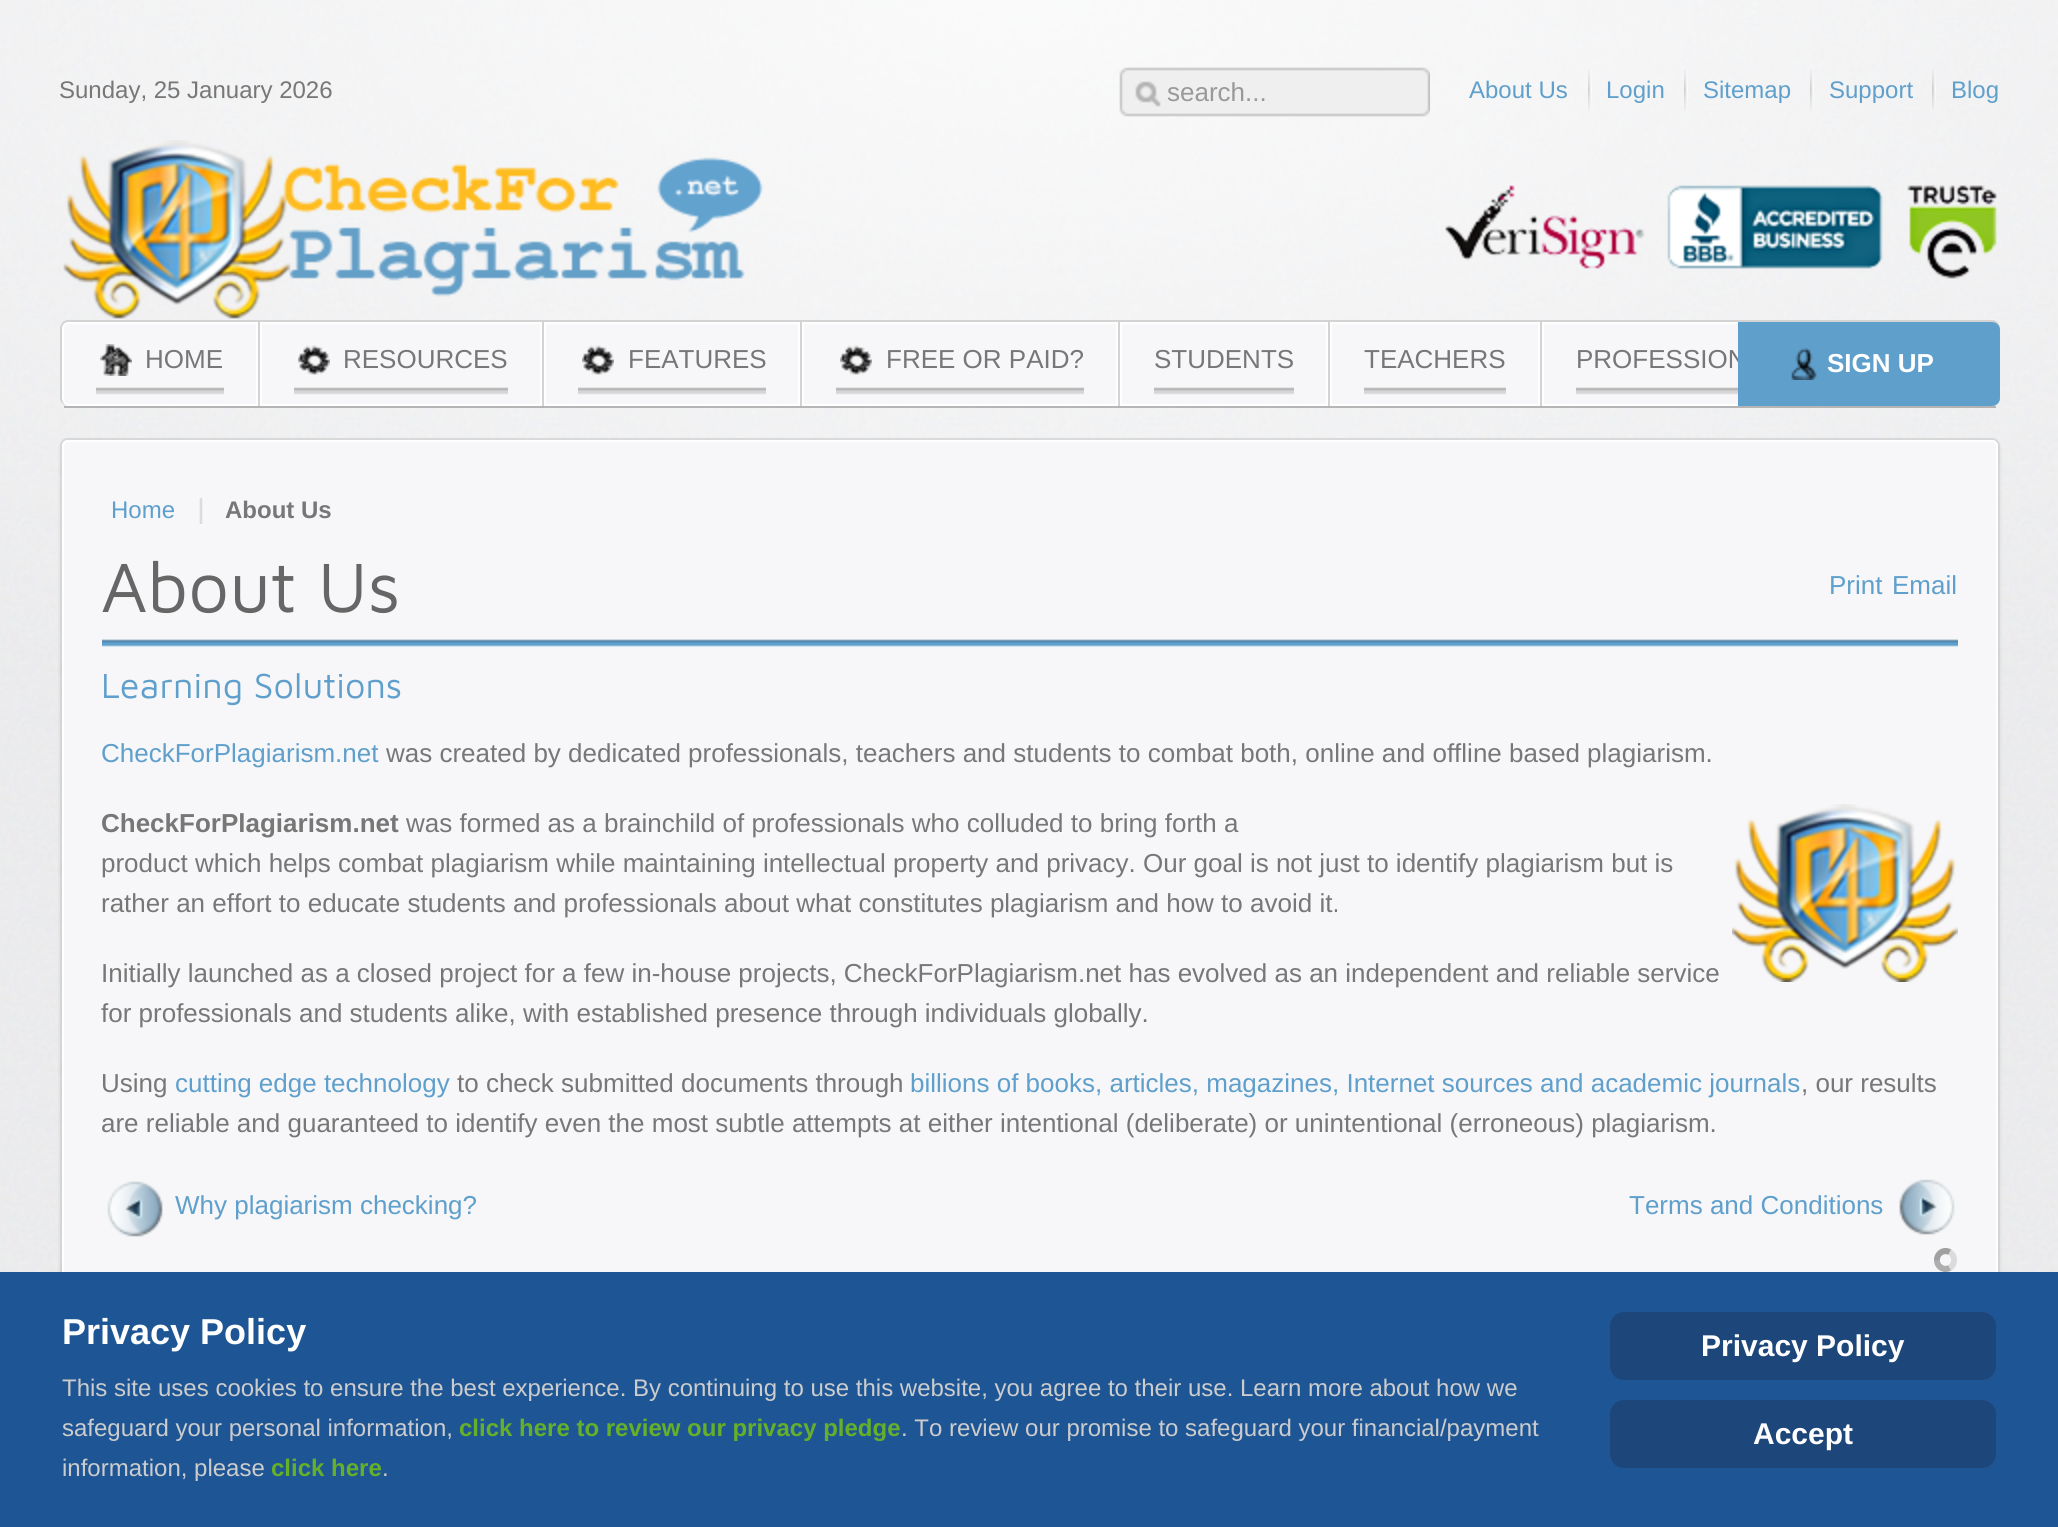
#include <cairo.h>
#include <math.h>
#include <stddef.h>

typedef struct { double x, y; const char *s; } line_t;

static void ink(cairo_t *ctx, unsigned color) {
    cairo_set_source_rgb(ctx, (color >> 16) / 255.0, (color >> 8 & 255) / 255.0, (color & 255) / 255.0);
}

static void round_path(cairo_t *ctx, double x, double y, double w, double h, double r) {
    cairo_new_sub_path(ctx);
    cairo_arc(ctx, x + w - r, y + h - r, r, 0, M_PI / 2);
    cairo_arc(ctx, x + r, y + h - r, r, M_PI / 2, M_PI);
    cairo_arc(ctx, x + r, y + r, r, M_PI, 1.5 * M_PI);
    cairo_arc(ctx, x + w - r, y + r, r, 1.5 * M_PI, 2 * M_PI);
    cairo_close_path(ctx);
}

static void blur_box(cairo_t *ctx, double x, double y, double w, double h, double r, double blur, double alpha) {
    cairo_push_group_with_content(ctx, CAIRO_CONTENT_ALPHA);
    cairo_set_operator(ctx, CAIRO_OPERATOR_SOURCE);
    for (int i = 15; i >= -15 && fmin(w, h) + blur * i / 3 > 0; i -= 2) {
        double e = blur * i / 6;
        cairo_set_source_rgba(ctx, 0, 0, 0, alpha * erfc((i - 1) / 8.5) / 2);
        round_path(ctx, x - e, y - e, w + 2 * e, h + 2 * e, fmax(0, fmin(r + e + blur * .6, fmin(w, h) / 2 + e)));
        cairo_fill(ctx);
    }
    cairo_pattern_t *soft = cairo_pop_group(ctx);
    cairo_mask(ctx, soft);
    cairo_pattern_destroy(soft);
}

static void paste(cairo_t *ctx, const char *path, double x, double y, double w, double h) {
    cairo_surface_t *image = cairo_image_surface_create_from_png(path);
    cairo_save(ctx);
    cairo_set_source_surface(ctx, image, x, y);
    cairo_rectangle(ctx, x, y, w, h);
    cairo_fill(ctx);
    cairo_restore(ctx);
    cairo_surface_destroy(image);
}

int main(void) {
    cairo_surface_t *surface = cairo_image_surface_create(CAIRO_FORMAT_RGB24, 2058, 1527);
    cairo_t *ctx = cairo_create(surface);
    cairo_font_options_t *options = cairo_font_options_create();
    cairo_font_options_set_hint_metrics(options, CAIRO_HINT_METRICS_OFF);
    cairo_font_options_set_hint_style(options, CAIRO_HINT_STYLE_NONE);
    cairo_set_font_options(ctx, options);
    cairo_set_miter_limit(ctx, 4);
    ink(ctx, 0xFFFFFF);
    cairo_paint(ctx);
    paste(ctx, "media/1.png", 0, 0, 2058, 1272);
    cairo_select_font_face(ctx, "Liberation Sans", CAIRO_FONT_SLANT_NORMAL, CAIRO_FONT_WEIGHT_NORMAL);
    cairo_set_font_size(ctx, 24);
    ink(ctx, 0x777777);
    cairo_move_to(ctx, 59, 98);
    cairo_show_text(ctx, "Sunday, 25 January 2026");
    ink(ctx, 0x5F9FCB);
    cairo_move_to(ctx, 1469, 98);
    cairo_show_text(ctx, "About Us");
    paste(ctx, "media/2.png", 1588, 70, 4, 40);
    cairo_move_to(ctx, 1606, 98);
    cairo_show_text(ctx, "Login");
    paste(ctx, "media/3.png", 1684, 70, 4, 40);
    cairo_move_to(ctx, 1703, 98);
    cairo_show_text(ctx, "Sitemap");
    paste(ctx, "media/4.png", 1810, 70, 4, 40);
    cairo_move_to(ctx, 1829, 98);
    cairo_show_text(ctx, "Support");
    paste(ctx, "media/5.png", 1932, 70, 4, 40);
    cairo_move_to(ctx, 1951, 98);
    cairo_show_text(ctx, "Blog");
    cairo_set_source_rgba(ctx, 0, 0, 0, 0.25);
    cairo_rectangle(ctx, 64, 406, 1932, 2);
    cairo_fill(ctx);
    paste(ctx, "media/6.png", 1119, 67, 311, 50);
    cairo_set_font_size(ctx, 26);
    ink(ctx, 0x999999);
    cairo_move_to(ctx, 1167, 101);
    cairo_show_text(ctx, "search...");
    ink(ctx, 0xD3D3D3);
    cairo_rectangle(ctx, 258, 320, 2, 86);
    cairo_fill(ctx);
    ink(ctx, 0xF7F7F9);
    cairo_new_path(ctx);
    cairo_move_to(ctx, 68, 322);
    cairo_line_to(ctx, 258, 322);
    cairo_line_to(ctx, 258, 406);
    cairo_line_to(ctx, 68, 406);
    cairo_curve_to(ctx, 65, 406, 62, 402, 62, 398);
    cairo_line_to(ctx, 62, 328);
    cairo_curve_to(ctx, 62, 325, 65, 322, 68, 322);
    cairo_close_path(ctx);
    cairo_fill(ctx);
    cairo_new_path(ctx);
    cairo_move_to(ctx, 68, 323);
    cairo_line_to(ctx, 257, 323);
    cairo_line_to(ctx, 257, 405);
    cairo_line_to(ctx, 68, 405);
    cairo_curve_to(ctx, 65, 405, 63, 402, 63, 398);
    cairo_line_to(ctx, 63, 328);
    cairo_curve_to(ctx, 63, 325, 65, 323, 68, 323);
    cairo_close_path(ctx);
    ink(ctx, 0xFFFFFF);
    cairo_stroke(ctx);
    ink(ctx, 0xD3D3D3);
    cairo_set_fill_rule(ctx, CAIRO_FILL_RULE_EVEN_ODD);
    cairo_new_path(ctx);
    cairo_move_to(ctx, 68, 320);
    cairo_line_to(ctx, 258, 320);
    cairo_line_to(ctx, 258, 406);
    cairo_line_to(ctx, 68, 406);
    cairo_curve_to(ctx, 64, 406, 60, 402, 60, 398);
    cairo_line_to(ctx, 60, 328);
    cairo_curve_to(ctx, 60, 324, 64, 320, 68, 320);
    cairo_close_path(ctx);
    cairo_move_to(ctx, 68, 322);
    cairo_line_to(ctx, 258, 322);
    cairo_line_to(ctx, 258, 406);
    cairo_line_to(ctx, 68, 406);
    cairo_curve_to(ctx, 65, 406, 62, 402, 62, 398);
    cairo_line_to(ctx, 62, 328);
    cairo_curve_to(ctx, 62, 325, 65, 322, 68, 322);
    cairo_close_path(ctx);
    cairo_fill(ctx);
    paste(ctx, "media/7.png", 96, 387, 128, 8);
    paste(ctx, "media/8.png", 100, 344, 32, 32);
    ink(ctx, 0x777777);
    cairo_move_to(ctx, 145, 368);
    cairo_show_text(ctx, "HOME");
    ink(ctx, 0xD3D3D3);
    cairo_rectangle(ctx, 542, 320, 2, 86);
    cairo_fill(ctx);
    ink(ctx, 0xF7F7F9);
    cairo_rectangle(ctx, 261, 323, 280, 82);
    cairo_fill_preserve(ctx);
    ink(ctx, 0xFFFFFF);
    cairo_stroke(ctx);
    ink(ctx, 0xD3D3D3);
    cairo_rectangle(ctx, 260, 320, 282, 2);
    cairo_fill(ctx);
    paste(ctx, "media/9.png", 294, 387, 214, 8);
    paste(ctx, "media/10.png", 298, 345, 32, 30);
    ink(ctx, 0x777777);
    cairo_move_to(ctx, 343, 368);
    cairo_show_text(ctx, "RESOURCES");
    ink(ctx, 0xD3D3D3);
    cairo_rectangle(ctx, 800, 320, 2, 86);
    cairo_fill(ctx);
    ink(ctx, 0xF7F7F9);
    cairo_rectangle(ctx, 545, 323, 254, 82);
    cairo_fill_preserve(ctx);
    ink(ctx, 0xFFFFFF);
    cairo_stroke(ctx);
    ink(ctx, 0xD3D3D3);
    cairo_rectangle(ctx, 544, 320, 256, 2);
    cairo_fill(ctx);
    paste(ctx, "media/11.png", 578, 387, 188, 8);
    paste(ctx, "media/10.png", 582, 345, 32, 30);
    ink(ctx, 0x777777);
    cairo_move_to(ctx, 628, 368);
    cairo_show_text(ctx, "FEATURES");
    ink(ctx, 0xD3D3D3);
    cairo_rectangle(ctx, 1118, 320, 2, 86);
    cairo_fill(ctx);
    ink(ctx, 0xF7F7F9);
    cairo_rectangle(ctx, 803, 323, 314, 82);
    cairo_fill_preserve(ctx);
    ink(ctx, 0xFFFFFF);
    cairo_stroke(ctx);
    ink(ctx, 0xD3D3D3);
    cairo_rectangle(ctx, 802, 320, 316, 2);
    cairo_fill(ctx);
    paste(ctx, "media/12.png", 836, 387, 248, 8);
    paste(ctx, "media/10.png", 840, 345, 32, 30);
    ink(ctx, 0x777777);
    cairo_move_to(ctx, 886, 368);
    cairo_show_text(ctx, "FREE OR PAID?");
    ink(ctx, 0xD3D3D3);
    cairo_rectangle(ctx, 1328, 320, 2, 86);
    cairo_fill(ctx);
    ink(ctx, 0xF7F7F9);
    cairo_rectangle(ctx, 1121, 323, 206, 82);
    cairo_fill_preserve(ctx);
    ink(ctx, 0xFFFFFF);
    cairo_stroke(ctx);
    ink(ctx, 0xD3D3D3);
    cairo_rectangle(ctx, 1120, 320, 208, 2);
    cairo_fill(ctx);
    paste(ctx, "media/13.png", 1154, 387, 140, 8);
    ink(ctx, 0x777777);
    cairo_move_to(ctx, 1154, 368);
    cairo_show_text(ctx, "STUDENTS");
    ink(ctx, 0xD3D3D3);
    cairo_rectangle(ctx, 1540, 320, 2, 86);
    cairo_fill(ctx);
    ink(ctx, 0xF7F7F9);
    cairo_rectangle(ctx, 1331, 323, 208, 82);
    cairo_fill_preserve(ctx);
    ink(ctx, 0xFFFFFF);
    cairo_stroke(ctx);
    ink(ctx, 0xD3D3D3);
    cairo_rectangle(ctx, 1330, 320, 210, 2);
    cairo_fill(ctx);
    paste(ctx, "media/14.png", 1364, 387, 142, 8);
    ink(ctx, 0x777777);
    cairo_move_to(ctx, 1364, 368);
    cairo_show_text(ctx, "TEACHERS");
    ink(ctx, 0xD3D3D3);
    cairo_rectangle(ctx, 1542, 320, 290, 2);
    cairo_fill(ctx);
    ink(ctx, 0xF7F7F9);
    cairo_rectangle(ctx, 1544, 324, 194, 80);
    cairo_fill(ctx);
    cairo_rectangle(ctx, 1543, 323, 286, 82);
    ink(ctx, 0xFFFFFF);
    cairo_stroke(ctx);
    paste(ctx, "media/15.png", 1576, 387, 162, 8);
    ink(ctx, 0x777777);
    cairo_move_to(ctx, 1576, 368);
    cairo_show_text(ctx, "PROFESSION");
    cairo_new_path(ctx);
    cairo_move_to(ctx, 1833, 323);
    cairo_line_to(ctx, 1992, 323);
    cairo_curve_to(ctx, 1995, 323, 1997, 325, 1997, 328);
    cairo_line_to(ctx, 1997, 398);
    cairo_curve_to(ctx, 1997, 402, 1995, 405, 1992, 405);
    cairo_line_to(ctx, 1833, 405);
    cairo_close_path(ctx);
    ink(ctx, 0xFFFFFF);
    cairo_stroke(ctx);
    ink(ctx, 0xD3D3D3);
    cairo_new_path(ctx);
    cairo_move_to(ctx, 1832, 320);
    cairo_line_to(ctx, 1992, 320);
    cairo_curve_to(ctx, 1996, 320, 2000, 324, 2000, 328);
    cairo_line_to(ctx, 2000, 398);
    cairo_curve_to(ctx, 2000, 402, 1996, 406, 1992, 406);
    cairo_line_to(ctx, 1832, 406);
    cairo_close_path(ctx);
    cairo_move_to(ctx, 1832, 322);
    cairo_line_to(ctx, 1992, 322);
    cairo_curve_to(ctx, 1995, 322, 1998, 325, 1998, 328);
    cairo_line_to(ctx, 1998, 398);
    cairo_curve_to(ctx, 1998, 402, 1995, 406, 1992, 406);
    cairo_line_to(ctx, 1832, 406);
    cairo_close_path(ctx);
    cairo_fill(ctx);
    paste(ctx, "media/16.png", 63, 140, 700, 179);
    paste(ctx, "media/17.png", 1445, 185, 552, 94);
    ink(ctx, 0x5F9FCB);
    cairo_new_path(ctx);
    cairo_move_to(ctx, 1738, 322);
    cairo_line_to(ctx, 1992, 322);
    cairo_curve_to(ctx, 1996.5, 322, 2000, 325.5, 2000, 330);
    cairo_line_to(ctx, 2000, 398);
    cairo_curve_to(ctx, 2000, 402.5, 1996.5, 406, 1992, 406);
    cairo_line_to(ctx, 1738, 406);
    cairo_close_path(ctx);
    cairo_fill(ctx);
    paste(ctx, "media/18.png", 1791, 348, 26, 32);
    cairo_select_font_face(ctx, "Liberation Sans", CAIRO_FONT_SLANT_NORMAL, CAIRO_FONT_WEIGHT_BOLD);
    ink(ctx, 0xFFFFFF);
    cairo_move_to(ctx, 1827, 372);
    cairo_show_text(ctx, "SIGN UP");
    cairo_save(ctx);
    cairo_new_path(ctx);
    cairo_move_to(ctx, 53, 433);
    cairo_line_to(ctx, 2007, 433);
    cairo_line_to(ctx, 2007, 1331);
    cairo_line_to(ctx, 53, 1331);
    cairo_close_path(ctx);
    cairo_move_to(ctx, 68, 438);
    cairo_line_to(ctx, 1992, 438);
    cairo_curve_to(ctx, 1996.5, 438, 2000, 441.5, 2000, 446);
    cairo_line_to(ctx, 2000, 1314);
    cairo_curve_to(ctx, 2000, 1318.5, 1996.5, 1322, 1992, 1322);
    cairo_line_to(ctx, 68, 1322);
    cairo_curve_to(ctx, 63.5, 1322, 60, 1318.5, 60, 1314);
    cairo_line_to(ctx, 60, 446);
    cairo_curve_to(ctx, 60, 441.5, 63.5, 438, 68, 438);
    cairo_close_path(ctx);
    cairo_clip(ctx);
    ink(ctx, 0x000000);
    blur_box(ctx, 60, 440, 1940, 884, 8, 2, 0.08);
    cairo_restore(ctx);
    cairo_new_path(ctx);
    cairo_move_to(ctx, 63, 1319);
    cairo_curve_to(ctx, 61.5, 1317.5, 61, 1316, 61, 1314);
    cairo_line_to(ctx, 61, 446);
    cairo_curve_to(ctx, 61, 444, 61.5, 442.5, 63, 441);
    cairo_curve_to(ctx, 64.5, 439.5, 66, 439, 68, 439);
    cairo_line_to(ctx, 1992, 439);
    cairo_curve_to(ctx, 1994, 439, 1995.5, 439.5, 1997, 441);
    cairo_curve_to(ctx, 1998.5, 442.5, 1999, 444, 1999, 446);
    cairo_line_to(ctx, 1999, 1314);
    cairo_curve_to(ctx, 1999, 1316, 1998.5, 1317.5, 1997, 1319);
    cairo_set_source_rgba(ctx, 0, 0, 0, 0.1);
    cairo_stroke(ctx);
    ink(ctx, 0xF7F7F9);
    round_path(ctx, 63, 441, 1934, 878, 5);
    cairo_fill_preserve(ctx);
    ink(ctx, 0xFFFFFF);
    cairo_stroke(ctx);
    paste(ctx, "media/19.png", 199, 498, 4, 26);
    cairo_select_font_face(ctx, "Liberation Sans", CAIRO_FONT_SLANT_NORMAL, CAIRO_FONT_WEIGHT_NORMAL);
    cairo_set_font_size(ctx, 24);
    ink(ctx, 0x5F9FCB);
    cairo_move_to(ctx, 111, 518);
    cairo_show_text(ctx, "Home");
    cairo_select_font_face(ctx, "Liberation Sans", CAIRO_FONT_SLANT_NORMAL, CAIRO_FONT_WEIGHT_BOLD);
    ink(ctx, 0x777777);
    cairo_move_to(ctx, 225, 518);
    cairo_show_text(ctx, "About Us");
    paste(ctx, "media/20.png", 102, 639, 1856, 8);
    cairo_select_font_face(ctx, "Maven Pro", CAIRO_FONT_SLANT_NORMAL, CAIRO_FONT_WEIGHT_NORMAL);
    cairo_set_font_size(ctx, 72);
    ink(ctx, 0x666666);
    cairo_move_to(ctx, 101, 612);
    cairo_show_text(ctx, "About Us");
    cairo_select_font_face(ctx, "Liberation Sans", CAIRO_FONT_SLANT_NORMAL, CAIRO_FONT_WEIGHT_NORMAL);
    cairo_set_font_size(ctx, 26);
    ink(ctx, 0x5F9FCB);
    cairo_move_to(ctx, 1829, 594);
    cairo_show_text(ctx, "Print");
    cairo_move_to(ctx, 1892, 594);
    cairo_show_text(ctx, "Email");
    cairo_select_font_face(ctx, "Maven Pro", CAIRO_FONT_SLANT_NORMAL, CAIRO_FONT_WEIGHT_NORMAL);
    cairo_set_font_size(ctx, 36);
    cairo_move_to(ctx, 101, 698);
    cairo_show_text(ctx, "Learning Solutions");
    cairo_select_font_face(ctx, "Liberation Sans", CAIRO_FONT_SLANT_NORMAL, CAIRO_FONT_WEIGHT_NORMAL);
    cairo_set_font_size(ctx, 26);
    cairo_move_to(ctx, 101, 762);
    cairo_show_text(ctx, "CheckForPlagiarism.net");
    ink(ctx, 0x777777);
    cairo_move_to(ctx, 386, 762);
    cairo_show_text(ctx, "was created by dedicated professionals, teachers and students to combat both, online and offline based plagiarism.");
    cairo_select_font_face(ctx, "Liberation Sans", CAIRO_FONT_SLANT_NORMAL, CAIRO_FONT_WEIGHT_BOLD);
    cairo_move_to(ctx, 101, 832);
    cairo_show_text(ctx, "CheckForPlagiarism.net");
    cairo_select_font_face(ctx, "Liberation Sans", CAIRO_FONT_SLANT_NORMAL, CAIRO_FONT_WEIGHT_NORMAL);
    cairo_move_to(ctx, 406, 832);
    cairo_show_text(ctx, "was formed as a brainchild of professionals who colluded to bring forth a");
    paste(ctx, "media/21.png", 1732, 804, 226, 178);
    {
        static const line_t items[] = {
            {101, 872, "product which helps combat plagiarism while maintaining intellectual property and privacy. Our goal is not just to identify plagiarism but is"},
            {101, 912, "rather an effort to educate students and professionals about what constitutes plagiarism and how to avoid it."},
            {101, 982, "Initially launched as a closed project for a few in-house projects, CheckForPlagiarism.net has evolved as an independent and reliable service"},
            {101, 1022, "for professionals and students alike, with established presence through individuals globally."},
            {101, 1092, "Using"},
        };
        for (size_t i = 0; i < sizeof items / sizeof *items; i++) {
            cairo_move_to(ctx, items[i].x, items[i].y);
            cairo_show_text(ctx, items[i].s);
        }
    }
    ink(ctx, 0x5F9FCB);
    cairo_move_to(ctx, 175, 1092);
    cairo_show_text(ctx, "cutting edge technology");
    ink(ctx, 0x777777);
    cairo_move_to(ctx, 457, 1092);
    cairo_show_text(ctx, "to check submitted documents through");
    ink(ctx, 0x5F9FCB);
    cairo_move_to(ctx, 910, 1092);
    cairo_show_text(ctx, "billions of books, articles, magazines, Internet sources and academic journals");
    ink(ctx, 0x777777);
    cairo_move_to(ctx, 1801, 1092);
    cairo_show_text(ctx, ", our results");
    cairo_move_to(ctx, 101, 1132);
    cairo_show_text(ctx, "are reliable and guaranteed to identify even the most subtle attempts at either intentional (deliberate) or unintentional (erroneous) plagiarism.");
    paste(ctx, "media/22.png", 107, 1181, 56, 56);
    ink(ctx, 0x5F9FCB);
    cairo_move_to(ctx, 175, 1214);
    cairo_show_text(ctx, "Why plagiarism checking?");
    cairo_move_to(ctx, 1629, 1214);
    cairo_show_text(ctx, "Terms and Conditions");
    paste(ctx, "media/23.png", 1899, 1179, 56, 56);
    paste(ctx, "media/24.png", 1934, 1248, 23, 24);
    ink(ctx, 0x1E5695);
    cairo_rectangle(ctx, 0, 1272, 2058, 255);
    cairo_fill(ctx);
    cairo_select_font_face(ctx, "Liberation Sans", CAIRO_FONT_SLANT_NORMAL, CAIRO_FONT_WEIGHT_BOLD);
    cairo_set_font_size(ctx, 36);
    ink(ctx, 0xFFFFFF);
    cairo_move_to(ctx, 62, 1344);
    cairo_show_text(ctx, "Privacy Policy");
    cairo_select_font_face(ctx, "Liberation Sans", CAIRO_FONT_SLANT_NORMAL, CAIRO_FONT_WEIGHT_NORMAL);
    cairo_set_font_size(ctx, 24);
    ink(ctx, 0xCCCCCC);
    cairo_move_to(ctx, 62, 1396);
    cairo_show_text(ctx, "This site uses cookies to ensure the best experience. By continuing to use this website, you agree to their use. Learn more about how we");
    cairo_move_to(ctx, 62, 1436);
    cairo_show_text(ctx, "safeguard your personal information,");
    cairo_select_font_face(ctx, "Liberation Sans", CAIRO_FONT_SLANT_NORMAL, CAIRO_FONT_WEIGHT_BOLD);
    ink(ctx, 0x66AF29);
    cairo_move_to(ctx, 459, 1436);
    cairo_show_text(ctx, "click here to review our privacy pledge");
    cairo_select_font_face(ctx, "Liberation Sans", CAIRO_FONT_SLANT_NORMAL, CAIRO_FONT_WEIGHT_NORMAL);
    ink(ctx, 0xCCCCCC);
    cairo_move_to(ctx, 901, 1436);
    cairo_show_text(ctx, ". To review our promise to safeguard your financial/payment");
    cairo_move_to(ctx, 62, 1476);
    cairo_show_text(ctx, "information, please");
    cairo_select_font_face(ctx, "Liberation Sans", CAIRO_FONT_SLANT_NORMAL, CAIRO_FONT_WEIGHT_BOLD);
    ink(ctx, 0x66AF29);
    cairo_move_to(ctx, 271, 1476);
    cairo_show_text(ctx, "click here");
    cairo_select_font_face(ctx, "Liberation Sans", CAIRO_FONT_SLANT_NORMAL, CAIRO_FONT_WEIGHT_NORMAL);
    ink(ctx, 0xCCCCCC);
    cairo_move_to(ctx, 382, 1476);
    cairo_show_text(ctx, ".");
    ink(ctx, 0x1D467A);
    round_path(ctx, 1610, 1312, 386, 68, 14);
    cairo_fill(ctx);
    cairo_select_font_face(ctx, "Liberation Sans", CAIRO_FONT_SLANT_NORMAL, CAIRO_FONT_WEIGHT_BOLD);
    cairo_set_font_size(ctx, 30);
    ink(ctx, 0xFFFFFF);
    cairo_move_to(ctx, 1701, 1356);
    cairo_show_text(ctx, "Privacy Policy");
    ink(ctx, 0x1D467A);
    round_path(ctx, 1610, 1400, 386, 68, 14);
    cairo_fill(ctx);
    ink(ctx, 0xFFFFFF);
    cairo_move_to(ctx, 1753, 1444);
    cairo_show_text(ctx, "Accept");
    cairo_surface_write_to_png(surface, "image.png");
    cairo_font_options_destroy(options);
    cairo_destroy(ctx);
    cairo_surface_destroy(surface);
    return 0;
}
